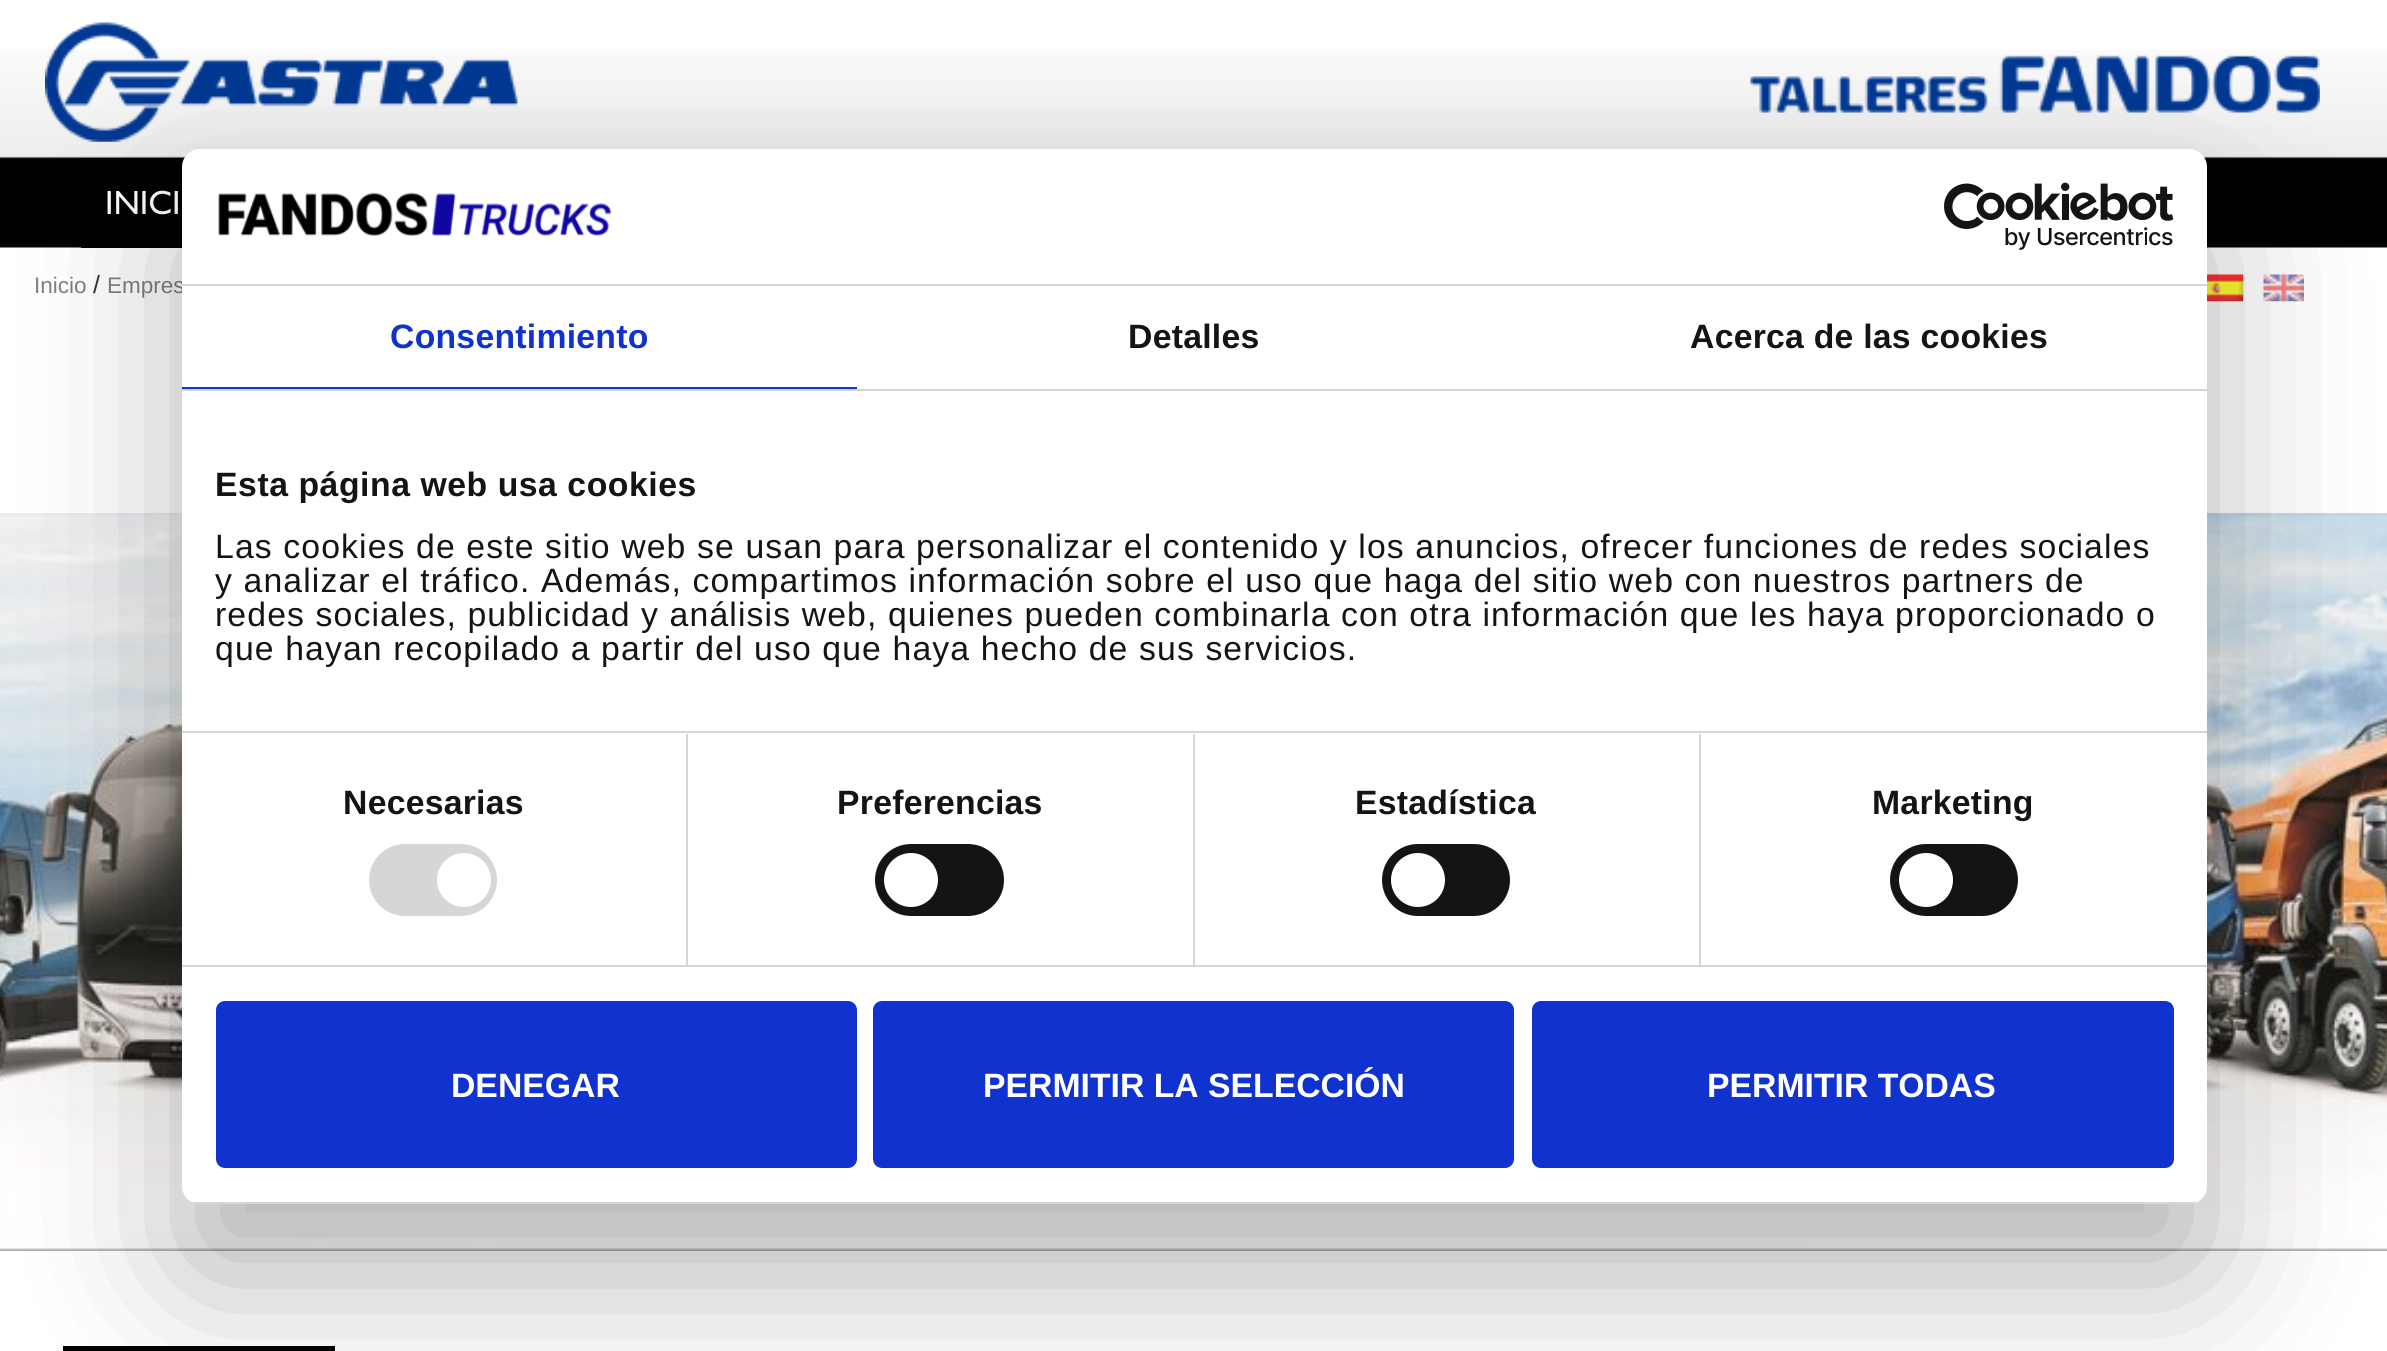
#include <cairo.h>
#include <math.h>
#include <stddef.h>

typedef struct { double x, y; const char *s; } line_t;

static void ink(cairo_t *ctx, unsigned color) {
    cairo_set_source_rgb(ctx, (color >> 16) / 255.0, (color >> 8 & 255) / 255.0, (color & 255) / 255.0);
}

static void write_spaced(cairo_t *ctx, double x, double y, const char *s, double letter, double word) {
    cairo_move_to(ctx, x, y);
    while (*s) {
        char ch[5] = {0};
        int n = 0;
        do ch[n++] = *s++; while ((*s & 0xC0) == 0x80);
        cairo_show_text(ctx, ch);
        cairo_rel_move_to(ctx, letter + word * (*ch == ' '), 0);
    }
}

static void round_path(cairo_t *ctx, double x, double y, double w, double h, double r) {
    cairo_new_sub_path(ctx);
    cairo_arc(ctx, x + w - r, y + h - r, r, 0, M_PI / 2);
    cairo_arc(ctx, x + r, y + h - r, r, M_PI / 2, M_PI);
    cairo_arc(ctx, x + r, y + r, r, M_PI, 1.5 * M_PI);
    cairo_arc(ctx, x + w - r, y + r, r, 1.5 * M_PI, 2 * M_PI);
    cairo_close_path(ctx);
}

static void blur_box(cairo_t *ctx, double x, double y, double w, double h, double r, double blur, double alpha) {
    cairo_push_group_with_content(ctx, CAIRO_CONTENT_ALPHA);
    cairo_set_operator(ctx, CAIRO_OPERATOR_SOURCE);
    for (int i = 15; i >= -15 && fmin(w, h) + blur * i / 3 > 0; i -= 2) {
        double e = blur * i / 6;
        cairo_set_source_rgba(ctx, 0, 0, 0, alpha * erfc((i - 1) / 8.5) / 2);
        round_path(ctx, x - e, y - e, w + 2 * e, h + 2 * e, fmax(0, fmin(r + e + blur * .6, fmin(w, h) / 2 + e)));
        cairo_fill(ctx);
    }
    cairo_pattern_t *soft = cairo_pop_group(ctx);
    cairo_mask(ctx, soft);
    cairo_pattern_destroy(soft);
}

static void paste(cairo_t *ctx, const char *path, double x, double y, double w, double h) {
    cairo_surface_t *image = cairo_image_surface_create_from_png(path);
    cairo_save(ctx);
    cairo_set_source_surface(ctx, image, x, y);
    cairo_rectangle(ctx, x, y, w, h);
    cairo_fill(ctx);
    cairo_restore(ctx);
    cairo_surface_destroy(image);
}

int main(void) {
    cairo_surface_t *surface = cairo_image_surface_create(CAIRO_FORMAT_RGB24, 2387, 1351);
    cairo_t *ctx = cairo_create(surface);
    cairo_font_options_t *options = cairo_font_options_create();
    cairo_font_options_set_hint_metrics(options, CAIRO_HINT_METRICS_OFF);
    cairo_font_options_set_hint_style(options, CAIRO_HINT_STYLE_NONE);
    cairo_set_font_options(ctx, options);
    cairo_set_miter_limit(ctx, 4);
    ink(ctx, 0xFFFFFF);
    cairo_paint(ctx);
    paste(ctx, "media/1.png", 0, 50, 2387, 198);
    paste(ctx, "media/2.png", 45, 22, 473, 120);
    paste(ctx, "media/3.png", 1750, 55, 570, 58);
    ink(ctx, 0x000000);
    cairo_rectangle(ctx, 81, 158, 104, 90);
    cairo_fill(ctx);
    cairo_select_font_face(ctx, "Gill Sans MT", CAIRO_FONT_SLANT_NORMAL, CAIRO_FONT_WEIGHT_NORMAL);
    cairo_set_font_size(ctx, 33.75);
    ink(ctx, 0xFFFFFF);
    cairo_move_to(ctx, 105, 214);
    cairo_show_text(ctx, "INICI");
    cairo_select_font_face(ctx, "Liberation Sans", CAIRO_FONT_SLANT_NORMAL, CAIRO_FONT_WEIGHT_NORMAL);
    cairo_set_font_size(ctx, 22.5);
    ink(ctx, 0x7F7F7F);
    cairo_move_to(ctx, 34, 293);
    cairo_show_text(ctx, "Inicio");
    cairo_set_font_size(ctx, 25);
    ink(ctx, 0x333333);
    cairo_move_to(ctx, 93, 293);
    cairo_show_text(ctx, "/");
    cairo_set_font_size(ctx, 22.5);
    ink(ctx, 0x7F7F7F);
    cairo_move_to(ctx, 107, 293);
    cairo_show_text(ctx, "Empres");
    paste(ctx, "media/4.png", 2207, 274, 37, 28);
    paste(ctx, "media/5.png", 2263, 274, 41, 28);
    paste(ctx, "media/6.png", 0, 513, 2387, 738);
    ink(ctx, 0x000000);
    cairo_rectangle(ctx, 63, 1346, 272, 5);
    cairo_fill(ctx);
    ink(ctx, 0x000000);
    blur_box(ctx, 182, 221, 2025, 1055, 18, 76.5, 0.3);
    ink(ctx, 0xFFFFFF);
    round_path(ctx, 182, 149, 2025, 1055, 18);
    cairo_fill(ctx);
    ink(ctx, 0xD6D6D6);
    cairo_rectangle(ctx, 182, 284, 2025, 2);
    cairo_fill(ctx);
    paste(ctx, "media/7.png", 218, 192, 394, 44);
    paste(ctx, "media/8.png", 1944, 182, 230, 68);
    cairo_rectangle(ctx, 182, 389, 2025, 2);
    cairo_fill(ctx);
    ink(ctx, 0x1032CF);
    cairo_rectangle(ctx, 182, 387, 675, 2);
    cairo_fill(ctx);
    cairo_select_font_face(ctx, "Liberation Sans", CAIRO_FONT_SLANT_NORMAL, CAIRO_FONT_WEIGHT_BOLD);
    cairo_set_font_size(ctx, 33.75);
    write_spaced(ctx, 390, 348, "Consentimiento", 0.25, 0);
    ink(ctx, 0x141414);
    write_spaced(ctx, 1128, 348, "Detalles", 0.25, 0);
    write_spaced(ctx, 1690, 348, "Acerca de las cookies", 0.25, 0);
    ink(ctx, 0xD6D6D6);
    cairo_rectangle(ctx, 182, 731, 2025, 2);
    cairo_fill(ctx);
    ink(ctx, 0x141414);
    write_spaced(ctx, 215, 496, "Esta página web usa cookies", 0.55, 0);
    cairo_select_font_face(ctx, "Liberation Sans", CAIRO_FONT_SLANT_NORMAL, CAIRO_FONT_WEIGHT_NORMAL);
    {
        static const line_t items[] = {
            {215, 558, "Las cookies de este sitio web se usan para personalizar el contenido y los anuncios, ofrecer funciones de redes sociales"},
            {215, 592, "y analizar el tráfico. Además, compartimos información sobre el uso que haga del sitio web con nuestros partners de"},
            {215, 626, "redes sociales, publicidad y análisis web, quienes pueden combinarla con otra información que les haya proporcionado o"},
            {215, 660, "que hayan recopilado a partir del uso que haya hecho de sus servicios."},
        };
        for (size_t i = 0; i < sizeof items / sizeof *items; i++) {
            write_spaced(ctx, items[i].x, items[i].y, items[i].s, 1.12, 0);
        }
    }
    ink(ctx, 0xD6D6D6);
    cairo_rectangle(ctx, 182, 965, 2025, 2);
    cairo_fill(ctx);
    cairo_rectangle(ctx, 686, 734, 2, 231);
    cairo_fill(ctx);
    cairo_select_font_face(ctx, "Liberation Sans", CAIRO_FONT_SLANT_NORMAL, CAIRO_FONT_WEIGHT_BOLD);
    ink(ctx, 0x141414);
    write_spaced(ctx, 343, 814, "Necesarias", 0.25, 0);
    ink(ctx, 0xD6D6D6);
    round_path(ctx, 369, 844, 128, 72, 36);
    cairo_fill(ctx);
    ink(ctx, 0xFFFFFF);
    cairo_arc(ctx, 464, 880, 27, 0, 2 * M_PI);
    cairo_fill(ctx);
    ink(ctx, 0xD6D6D6);
    cairo_rectangle(ctx, 1193, 734, 2, 231);
    cairo_fill(ctx);
    ink(ctx, 0x141414);
    write_spaced(ctx, 837, 814, "Preferencias", 0.25, 0);
    round_path(ctx, 875, 844, 129, 72, 36);
    cairo_fill(ctx);
    ink(ctx, 0xFFFFFF);
    cairo_arc(ctx, 911, 880, 27, 0, 2 * M_PI);
    cairo_fill(ctx);
    ink(ctx, 0xD6D6D6);
    cairo_rectangle(ctx, 1699, 734, 2, 231);
    cairo_fill(ctx);
    ink(ctx, 0x141414);
    write_spaced(ctx, 1355, 814, "Estadística", 0.25, 0);
    round_path(ctx, 1382, 844, 128, 72, 36);
    cairo_fill(ctx);
    ink(ctx, 0xFFFFFF);
    cairo_arc(ctx, 1418, 880, 27, 0, 2 * M_PI);
    cairo_fill(ctx);
    ink(ctx, 0x141414);
    write_spaced(ctx, 1872, 814, "Marketing", 0.25, 0);
    round_path(ctx, 1890, 844, 128, 72, 36);
    cairo_fill(ctx);
    ink(ctx, 0xFFFFFF);
    cairo_arc(ctx, 1926, 880, 27, 0, 2 * M_PI);
    cairo_fill(ctx);
    cairo_save(ctx);
    round_path(ctx, 182, 149, 2025, 1055, 18);
    cairo_clip(ctx);
    ink(ctx, 0xD6D6D6);
    cairo_rectangle(ctx, 192, 1202, 2005, 2);
    cairo_fill(ctx);
    cairo_restore(ctx);
    ink(ctx, 0x1032CF);
    round_path(ctx, 218.5, 1003.5, 636, 162, 6.5);
    cairo_fill_preserve(ctx);
    cairo_set_line_width(ctx, 5);
    cairo_stroke(ctx);
    ink(ctx, 0xFFFFFF);
    cairo_move_to(ctx, 451, 1097);
    cairo_show_text(ctx, "DENEGAR");
    ink(ctx, 0x1032CF);
    round_path(ctx, 875.5, 1003.5, 636, 162, 6.5);
    cairo_fill_preserve(ctx);
    cairo_stroke(ctx);
    ink(ctx, 0xFFFFFF);
    cairo_move_to(ctx, 983, 1097);
    cairo_show_text(ctx, "PERMITIR LA SELECCIÓN");
    ink(ctx, 0x1032CF);
    round_path(ctx, 1534.5, 1003.5, 637, 162, 6.5);
    cairo_fill_preserve(ctx);
    cairo_stroke(ctx);
    ink(ctx, 0xFFFFFF);
    cairo_move_to(ctx, 1707, 1097);
    cairo_show_text(ctx, "PERMITIR TODAS");
    cairo_surface_write_to_png(surface, "image.png");
    cairo_font_options_destroy(options);
    cairo_destroy(ctx);
    cairo_surface_destroy(surface);
    return 0;
}
